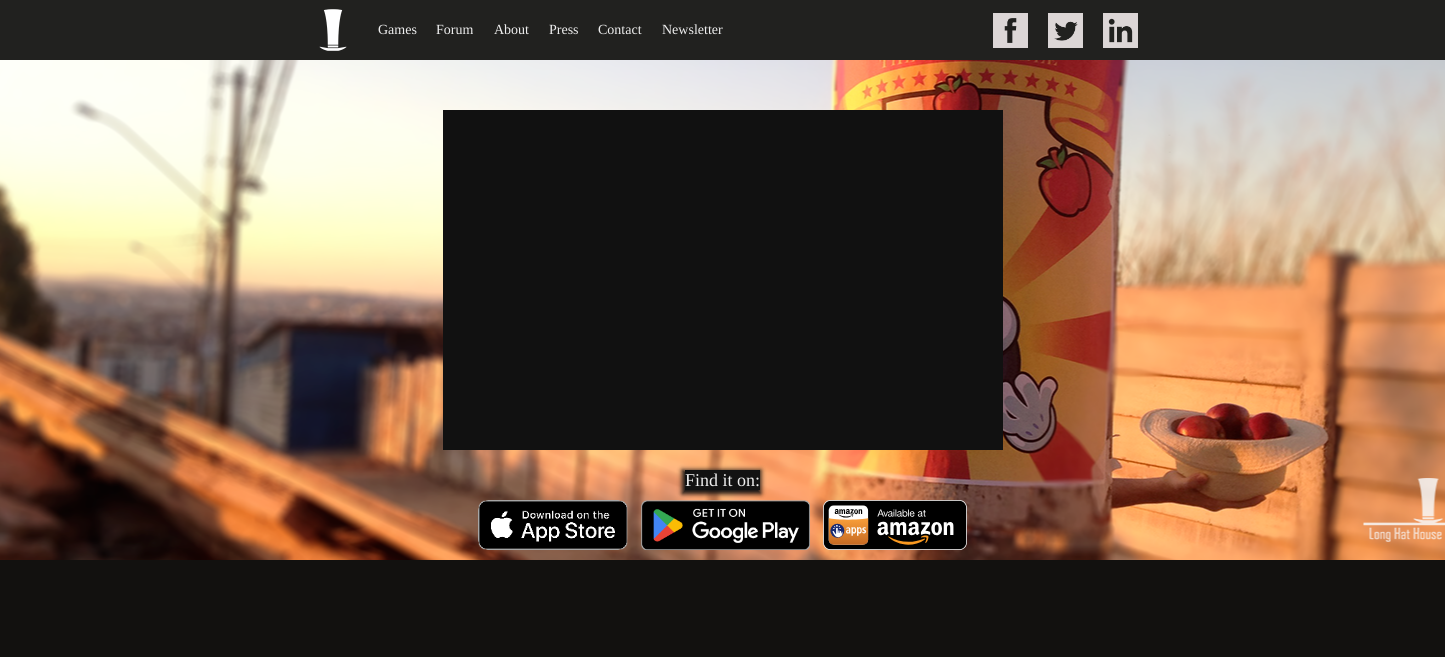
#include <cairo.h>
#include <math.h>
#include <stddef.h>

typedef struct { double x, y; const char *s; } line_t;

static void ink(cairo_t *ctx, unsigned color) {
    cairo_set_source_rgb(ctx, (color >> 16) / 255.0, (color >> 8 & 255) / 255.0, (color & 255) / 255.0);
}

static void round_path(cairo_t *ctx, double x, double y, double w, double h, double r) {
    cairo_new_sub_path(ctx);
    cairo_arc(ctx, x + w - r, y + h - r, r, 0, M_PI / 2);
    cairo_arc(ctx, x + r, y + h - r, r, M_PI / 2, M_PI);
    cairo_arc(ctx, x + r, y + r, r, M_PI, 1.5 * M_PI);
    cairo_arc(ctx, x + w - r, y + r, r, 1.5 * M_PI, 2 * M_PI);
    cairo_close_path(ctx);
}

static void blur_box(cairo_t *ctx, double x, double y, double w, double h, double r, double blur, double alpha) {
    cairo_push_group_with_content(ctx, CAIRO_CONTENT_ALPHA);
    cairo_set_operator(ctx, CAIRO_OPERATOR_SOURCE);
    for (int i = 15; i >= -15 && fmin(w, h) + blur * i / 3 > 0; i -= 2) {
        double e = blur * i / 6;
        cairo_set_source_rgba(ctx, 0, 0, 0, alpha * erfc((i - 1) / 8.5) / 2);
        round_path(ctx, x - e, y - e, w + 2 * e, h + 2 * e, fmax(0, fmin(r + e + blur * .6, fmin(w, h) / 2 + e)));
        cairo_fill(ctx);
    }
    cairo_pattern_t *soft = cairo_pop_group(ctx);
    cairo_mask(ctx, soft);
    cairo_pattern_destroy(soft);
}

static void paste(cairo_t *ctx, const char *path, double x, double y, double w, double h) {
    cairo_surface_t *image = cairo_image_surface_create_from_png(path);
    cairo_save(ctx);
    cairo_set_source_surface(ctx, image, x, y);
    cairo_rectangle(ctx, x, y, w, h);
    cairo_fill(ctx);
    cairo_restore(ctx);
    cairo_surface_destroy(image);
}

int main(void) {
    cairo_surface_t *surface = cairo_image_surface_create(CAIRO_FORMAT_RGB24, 1445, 657);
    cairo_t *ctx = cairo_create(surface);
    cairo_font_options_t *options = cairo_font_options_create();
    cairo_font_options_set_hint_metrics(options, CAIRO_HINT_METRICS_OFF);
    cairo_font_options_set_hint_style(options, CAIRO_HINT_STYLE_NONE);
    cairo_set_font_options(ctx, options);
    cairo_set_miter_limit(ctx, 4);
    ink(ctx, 0x12110F);
    cairo_paint(ctx);
    ink(ctx, 0x21211F);
    cairo_rectangle(ctx, 0, 0, 1445, 60);
    cairo_fill(ctx);
    paste(ctx, "media/1.png", 319, 9, 28, 42);
    cairo_select_font_face(ctx, "Liberation Serif", CAIRO_FONT_SLANT_NORMAL, CAIRO_FONT_WEIGHT_NORMAL);
    cairo_set_font_size(ctx, 14);
    ink(ctx, 0xEEEEEE);
    {
        static const line_t items[] = {
            {378, 34, "Games"},
            {436, 34, "Forum"},
            {494, 34, "About"},
            {549, 34, "Press"},
            {598, 34, "Contact"},
            {662, 34, "Newsletter"},
        };
        for (size_t i = 0; i < sizeof items / sizeof *items; i++) {
            cairo_move_to(ctx, items[i].x, items[i].y);
            cairo_show_text(ctx, items[i].s);
        }
    }
    paste(ctx, "media/2.png", 993, 13, 35, 35);
    paste(ctx, "media/3.png", 1048, 13, 35, 35);
    paste(ctx, "media/4.png", 1103, 13, 35, 35);
    paste(ctx, "media/5.png", 0, 60, 1445, 500);
    ink(ctx, 0x111111);
    cairo_rectangle(ctx, 443, 110, 560, 340);
    cairo_fill(ctx);
    ink(ctx, 0x121212);
    blur_box(ctx, 682, 470, 79, 24, 0, 2.5, 1);
    ink(ctx, 0x121212);
    cairo_rectangle(ctx, 685, 470, 75, 20);
    cairo_fill(ctx);
    cairo_set_font_size(ctx, 18);
    ink(ctx, 0xEEEEEE);
    cairo_move_to(ctx, 685, 486);
    cairo_show_text(ctx, "Find it on:");
    paste(ctx, "media/6.png", 478, 500, 150, 50);
    paste(ctx, "media/7.png", 641, 500, 169, 50);
    paste(ctx, "media/8.png", 823, 500, 144, 50);
    cairo_surface_write_to_png(surface, "image.png");
    cairo_font_options_destroy(options);
    cairo_destroy(ctx);
    cairo_surface_destroy(surface);
    return 0;
}
